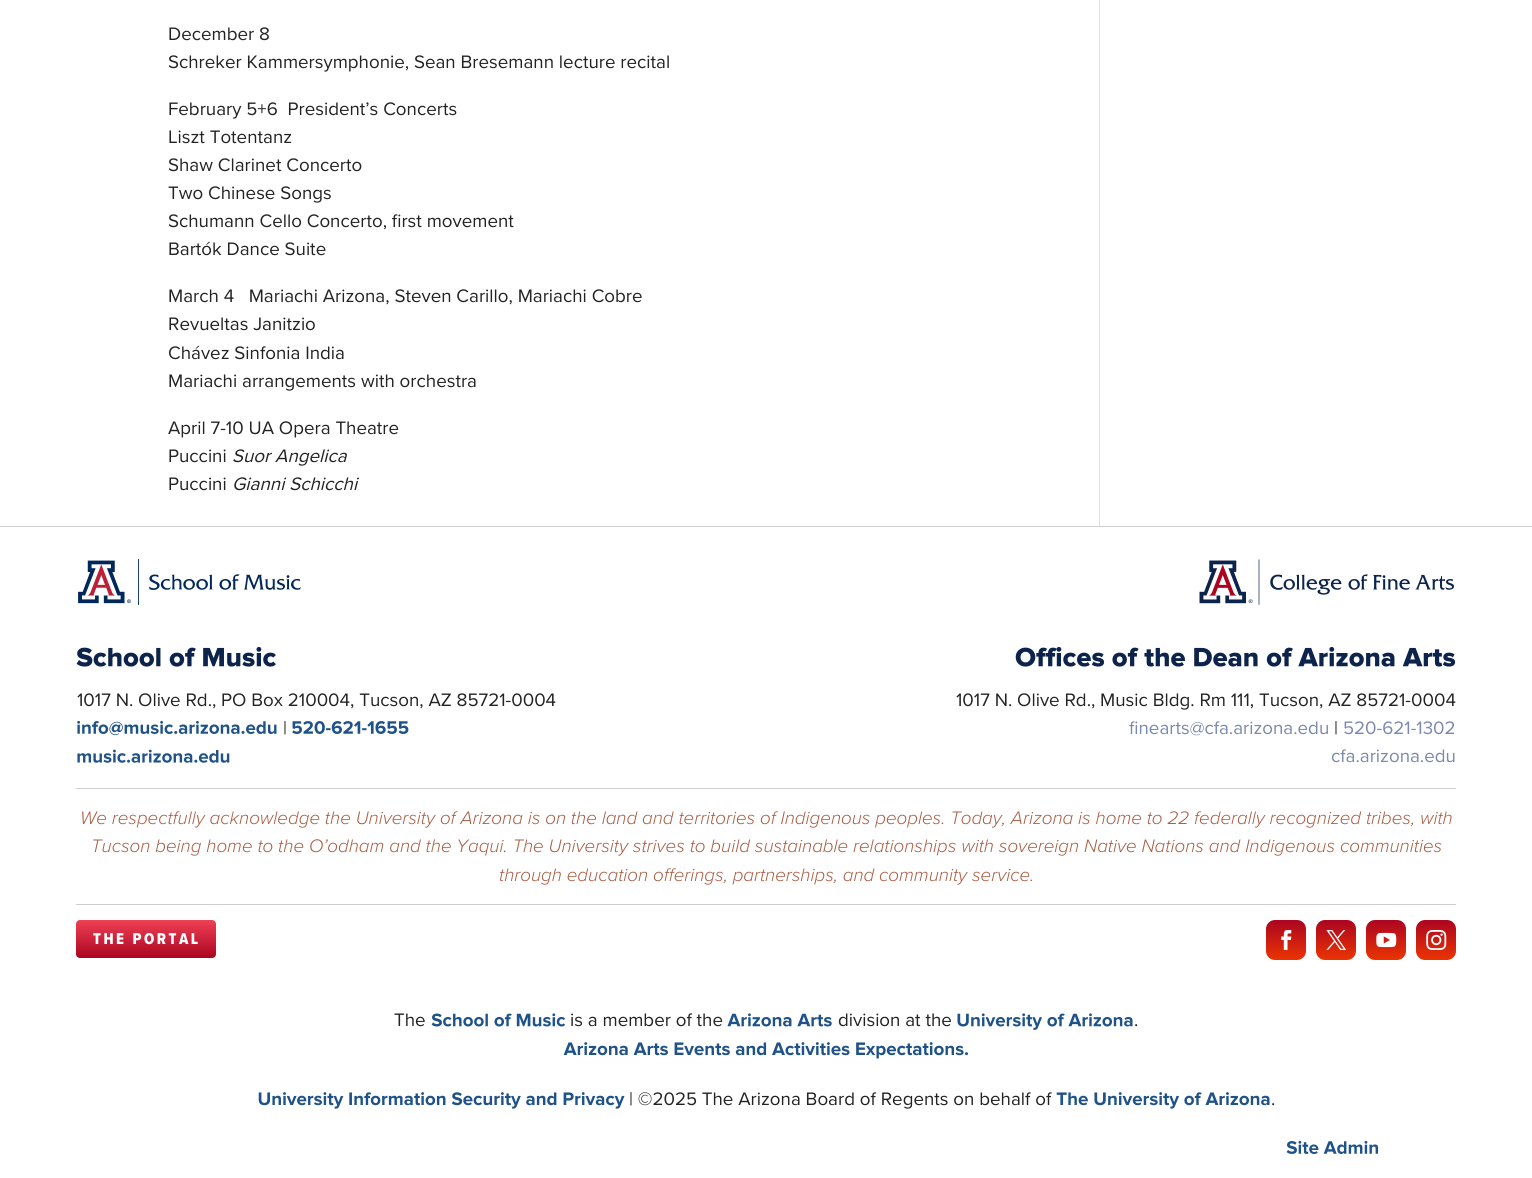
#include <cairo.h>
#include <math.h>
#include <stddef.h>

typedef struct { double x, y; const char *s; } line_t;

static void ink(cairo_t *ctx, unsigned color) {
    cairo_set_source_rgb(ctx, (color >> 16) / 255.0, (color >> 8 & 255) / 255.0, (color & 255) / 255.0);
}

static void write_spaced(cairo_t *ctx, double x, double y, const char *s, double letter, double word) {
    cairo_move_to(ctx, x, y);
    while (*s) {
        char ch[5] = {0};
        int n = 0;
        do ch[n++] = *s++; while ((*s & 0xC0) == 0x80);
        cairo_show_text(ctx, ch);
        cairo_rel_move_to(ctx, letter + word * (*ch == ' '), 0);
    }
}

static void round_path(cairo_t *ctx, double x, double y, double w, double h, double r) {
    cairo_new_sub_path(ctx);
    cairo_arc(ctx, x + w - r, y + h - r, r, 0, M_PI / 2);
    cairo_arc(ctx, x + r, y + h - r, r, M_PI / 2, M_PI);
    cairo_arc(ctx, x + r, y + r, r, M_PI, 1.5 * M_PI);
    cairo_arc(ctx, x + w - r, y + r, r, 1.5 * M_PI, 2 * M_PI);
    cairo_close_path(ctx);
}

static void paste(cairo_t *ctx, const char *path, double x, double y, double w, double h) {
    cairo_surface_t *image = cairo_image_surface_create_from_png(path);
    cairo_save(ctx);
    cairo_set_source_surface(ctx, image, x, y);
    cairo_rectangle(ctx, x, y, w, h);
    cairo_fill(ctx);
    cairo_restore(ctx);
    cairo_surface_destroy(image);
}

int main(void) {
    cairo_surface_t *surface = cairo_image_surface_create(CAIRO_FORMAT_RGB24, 1532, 1178);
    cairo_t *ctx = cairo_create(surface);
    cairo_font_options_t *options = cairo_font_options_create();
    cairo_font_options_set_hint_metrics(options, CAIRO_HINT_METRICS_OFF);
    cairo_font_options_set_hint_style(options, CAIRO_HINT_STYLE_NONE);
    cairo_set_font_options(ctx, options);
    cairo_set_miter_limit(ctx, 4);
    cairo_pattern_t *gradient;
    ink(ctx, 0xFFFFFF);
    cairo_paint(ctx);
    cairo_select_font_face(ctx, "Proxima Nova", CAIRO_FONT_SLANT_NORMAL, CAIRO_FONT_WEIGHT_NORMAL);
    cairo_set_font_size(ctx, 18.75);
    ink(ctx, 0x232323);
    {
        static const line_t items[] = {
            {168, 40, "December 8"},
            {168, 68, "Schreker Kammersymphonie, Sean Bresemann lecture recital"},
            {168, 115, "February 5+6  President’s Concerts"},
            {168, 143, "Liszt Totentanz"},
            {168, 171, "Shaw Clarinet Concerto"},
            {168, 199, "Two Chinese Songs"},
            {168, 227, "Schumann Cello Concerto, first movement"},
            {168, 255, "Bartók Dance Suite"},
            {168, 302, "March 4   Mariachi Arizona, Steven Carillo, Mariachi Cobre"},
            {168, 330, "Revueltas Janitzio"},
            {168, 359, "Chávez Sinfonia India"},
            {168, 387, "Mariachi arrangements with orchestra"},
            {168, 434, "April 7-10 UA Opera Theatre"},
            {168, 462, "Puccini"},
        };
        for (size_t i = 0; i < sizeof items / sizeof *items; i++) {
            cairo_move_to(ctx, items[i].x, items[i].y);
            cairo_show_text(ctx, items[i].s);
        }
    }
    cairo_select_font_face(ctx, "Proxima Nova", CAIRO_FONT_SLANT_ITALIC, CAIRO_FONT_WEIGHT_NORMAL);
    cairo_move_to(ctx, 232, 462);
    cairo_show_text(ctx, "Suor Angelica");
    cairo_select_font_face(ctx, "Proxima Nova", CAIRO_FONT_SLANT_NORMAL, CAIRO_FONT_WEIGHT_NORMAL);
    cairo_move_to(ctx, 168, 490);
    cairo_show_text(ctx, "Puccini");
    cairo_select_font_face(ctx, "Proxima Nova", CAIRO_FONT_SLANT_ITALIC, CAIRO_FONT_WEIGHT_NORMAL);
    cairo_move_to(ctx, 232, 490);
    cairo_show_text(ctx, "Gianni Schicchi");
    ink(ctx, 0xE2E2E2);
    cairo_rectangle(ctx, 1099, 0, 1, 526);
    cairo_fill(ctx);
    ink(ctx, 0xCECECE);
    cairo_rectangle(ctx, 0, 526, 1532, 1);
    cairo_fill(ctx);
    paste(ctx, "media/1.png", 78, 559, 223, 46);
    paste(ctx, "media/2.png", 76, 646, 200, 21);
    cairo_select_font_face(ctx, "Proxima Nova", CAIRO_FONT_SLANT_NORMAL, CAIRO_FONT_WEIGHT_NORMAL);
    ink(ctx, 0x232323);
    cairo_move_to(ctx, 77, 706);
    cairo_show_text(ctx, "1017 N. Olive Rd., PO Box 210004, Tucson, AZ 85721-0004");
    paste(ctx, "media/3.png", 77, 720, 200, 16);
    cairo_move_to(ctx, 283, 734);
    cairo_show_text(ctx, "|");
    paste(ctx, "media/4.png", 292, 721, 117, 13);
    paste(ctx, "media/5.png", 77, 749, 153, 14);
    paste(ctx, "media/6.png", 1199, 559, 255, 46);
    paste(ctx, "media/7.png", 1015, 646, 441, 21);
    cairo_move_to(ctx, 956, 706);
    cairo_show_text(ctx, "1017 N. Olive Rd., Music Bldg. Rm 111, Tucson, AZ 85721-0004");
    ink(ctx, 0x7B89AE);
    cairo_move_to(ctx, 1129, 734);
    cairo_show_text(ctx, "finearts@cfa.arizona.edu");
    ink(ctx, 0x232323);
    cairo_move_to(ctx, 1334, 734);
    cairo_show_text(ctx, "|");
    ink(ctx, 0x7B89AE);
    cairo_move_to(ctx, 1343, 734);
    cairo_show_text(ctx, "520-621-1302");
    cairo_move_to(ctx, 1331, 762);
    cairo_show_text(ctx, "cfa.arizona.edu");
    ink(ctx, 0xCECECE);
    cairo_rectangle(ctx, 76, 788, 1380, 1);
    cairo_fill(ctx);
    cairo_select_font_face(ctx, "Proxima Nova Light", CAIRO_FONT_SLANT_ITALIC, CAIRO_FONT_WEIGHT_NORMAL);
    ink(ctx, 0xA95C42);
    {
        static const line_t items[] = {
            {80, 824, "We respectfully acknowledge the University of Arizona is on the land and territories of Indigenous peoples. Today, Arizona is home to 22 federally recognized tribes, with"},
            {91, 852, "Tucson being home to the O’odham and the Yaqui. The University strives to build sustainable relationships with sovereign Native Nations and Indigenous communities"},
            {499, 881, "through education offerings, partnerships, and community service."},
        };
        for (size_t i = 0; i < sizeof items / sizeof *items; i++) {
            cairo_move_to(ctx, items[i].x, items[i].y);
            cairo_show_text(ctx, items[i].s);
        }
    }
    ink(ctx, 0xCECECE);
    cairo_rectangle(ctx, 76, 904, 1380, 1);
    cairo_fill(ctx);
    gradient = cairo_pattern_create_linear(146, 920, 146, 958);
    cairo_pattern_add_color_stop_rgba(gradient, 0, 0.937, 0.251, 0.337, 1);
    cairo_pattern_add_color_stop_rgba(gradient, 1, 0.671, 0.02, 0.125, 1);
    cairo_set_source(ctx, gradient);
    cairo_pattern_destroy(gradient);
    round_path(ctx, 76, 920, 140, 38, 4);
    cairo_fill(ctx);
    cairo_select_font_face(ctx, "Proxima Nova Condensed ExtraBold", CAIRO_FONT_SLANT_NORMAL, CAIRO_FONT_WEIGHT_NORMAL);
    cairo_set_font_size(ctx, 16.25);
    ink(ctx, 0xFFFFFF);
    write_spaced(ctx, 93, 944, "THE PORTAL", 2.5, 0);
    gradient = cairo_pattern_create_linear(1286, 920, 1286, 960);
    cairo_pattern_add_color_stop_rgba(gradient, 0, 0.671, 0.02, 0.125, 1);
    cairo_pattern_add_color_stop_rgba(gradient, 1, 0.918, 0.204, 0.012, 1);
    cairo_set_source(ctx, gradient);
    cairo_pattern_destroy(gradient);
    round_path(ctx, 1266, 920, 40, 40, 9);
    cairo_fill(ctx);
    paste(ctx, "media/8.png", 1281, 930, 11, 20);
    gradient = cairo_pattern_create_linear(1336, 920, 1336, 960);
    cairo_pattern_add_color_stop_rgba(gradient, 0, 0.671, 0.02, 0.125, 1);
    cairo_pattern_add_color_stop_rgba(gradient, 1, 0.918, 0.204, 0.012, 1);
    cairo_set_source(ctx, gradient);
    cairo_pattern_destroy(gradient);
    round_path(ctx, 1316, 920, 40, 40, 9);
    cairo_fill(ctx);
    paste(ctx, "media/9.png", 1326, 930, 21, 20);
    gradient = cairo_pattern_create_linear(1386, 920, 1386, 960);
    cairo_pattern_add_color_stop_rgba(gradient, 0, 0.671, 0.02, 0.125, 1);
    cairo_pattern_add_color_stop_rgba(gradient, 1, 0.918, 0.204, 0.012, 1);
    cairo_set_source(ctx, gradient);
    cairo_pattern_destroy(gradient);
    round_path(ctx, 1366, 920, 40, 40, 9);
    cairo_fill(ctx);
    paste(ctx, "media/10.png", 1376, 932, 21, 16);
    gradient = cairo_pattern_create_linear(1436, 920, 1436, 960);
    cairo_pattern_add_color_stop_rgba(gradient, 0, 0.671, 0.02, 0.125, 1);
    cairo_pattern_add_color_stop_rgba(gradient, 1, 0.918, 0.204, 0.012, 1);
    cairo_set_source(ctx, gradient);
    cairo_pattern_destroy(gradient);
    round_path(ctx, 1416, 920, 40, 40, 9);
    cairo_fill(ctx);
    paste(ctx, "media/11.png", 1426, 930, 21, 20);
    cairo_select_font_face(ctx, "Proxima Nova", CAIRO_FONT_SLANT_NORMAL, CAIRO_FONT_WEIGHT_NORMAL);
    cairo_set_font_size(ctx, 18.75);
    ink(ctx, 0x232323);
    cairo_move_to(ctx, 394, 1026);
    cairo_show_text(ctx, "The");
    paste(ctx, "media/12.png", 431, 1013, 134, 14);
    cairo_move_to(ctx, 570, 1026);
    cairo_show_text(ctx, "is a member of the");
    paste(ctx, "media/13.png", 727, 1013, 105, 14);
    cairo_move_to(ctx, 838, 1026);
    cairo_show_text(ctx, "division at the");
    paste(ctx, "media/14.png", 957, 1013, 176, 17);
    cairo_move_to(ctx, 1134, 1026);
    cairo_show_text(ctx, ".");
    paste(ctx, "media/15.png", 563, 1042, 405, 17);
    paste(ctx, "media/16.png", 258, 1092, 367, 17);
    cairo_move_to(ctx, 629, 1105);
    cairo_show_text(ctx, "| ©2025 The Arizona Board of Regents on behalf of");
    paste(ctx, "media/17.png", 1056, 1092, 214, 17);
    cairo_move_to(ctx, 1271, 1105);
    cairo_show_text(ctx, ".");
    paste(ctx, "media/18.png", 1286, 1140, 92, 14);
    cairo_surface_write_to_png(surface, "image.png");
    cairo_font_options_destroy(options);
    cairo_destroy(ctx);
    cairo_surface_destroy(surface);
    return 0;
}
